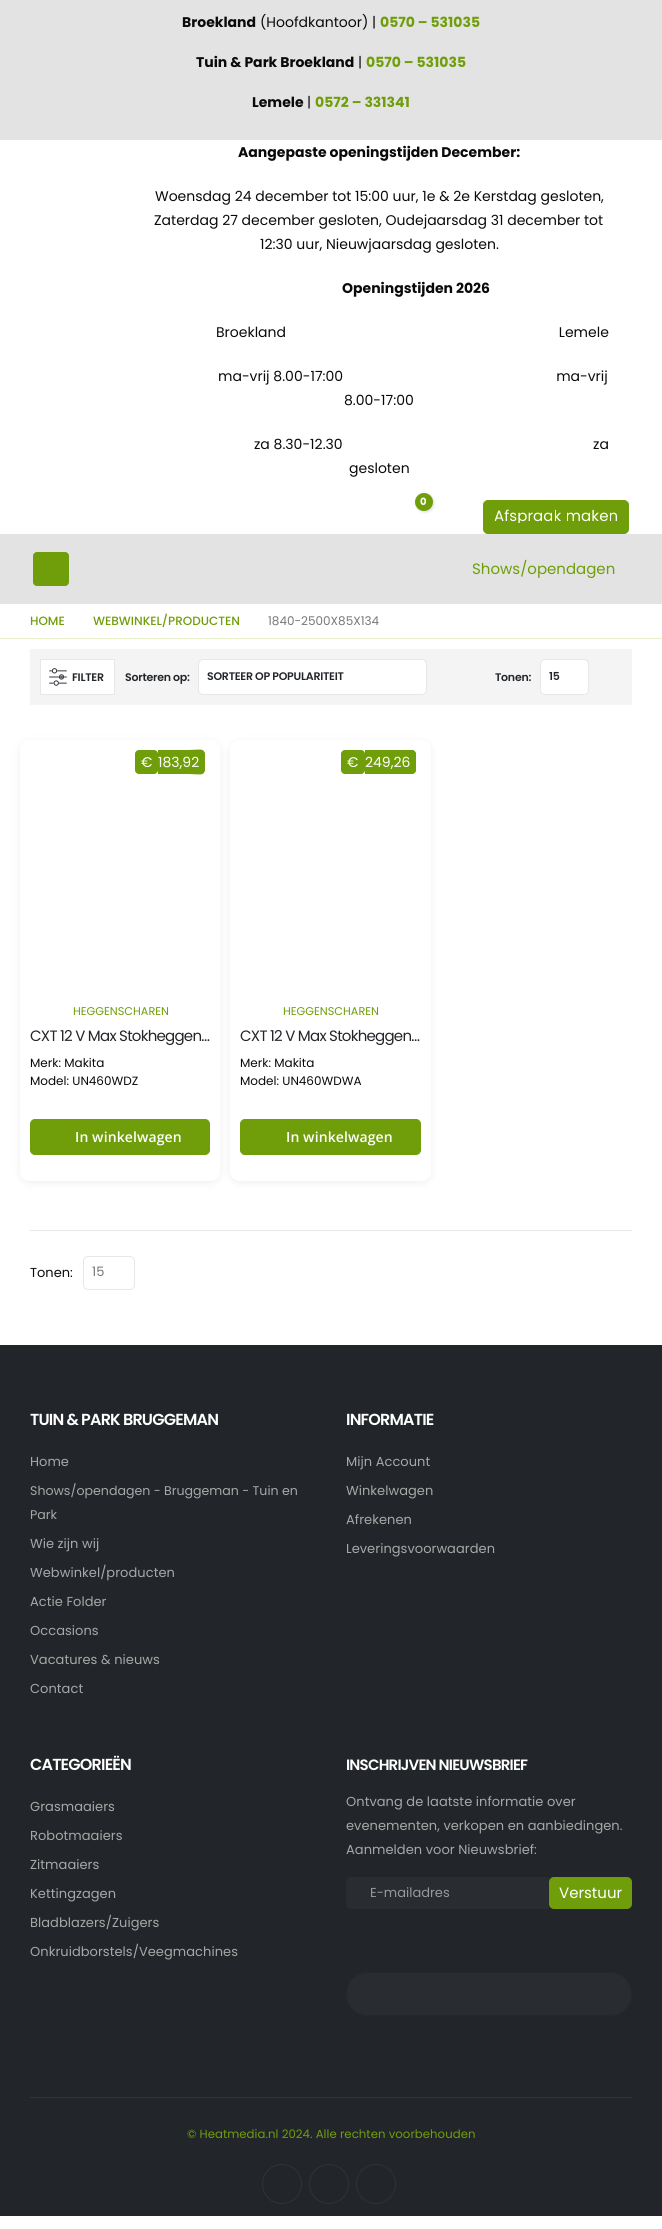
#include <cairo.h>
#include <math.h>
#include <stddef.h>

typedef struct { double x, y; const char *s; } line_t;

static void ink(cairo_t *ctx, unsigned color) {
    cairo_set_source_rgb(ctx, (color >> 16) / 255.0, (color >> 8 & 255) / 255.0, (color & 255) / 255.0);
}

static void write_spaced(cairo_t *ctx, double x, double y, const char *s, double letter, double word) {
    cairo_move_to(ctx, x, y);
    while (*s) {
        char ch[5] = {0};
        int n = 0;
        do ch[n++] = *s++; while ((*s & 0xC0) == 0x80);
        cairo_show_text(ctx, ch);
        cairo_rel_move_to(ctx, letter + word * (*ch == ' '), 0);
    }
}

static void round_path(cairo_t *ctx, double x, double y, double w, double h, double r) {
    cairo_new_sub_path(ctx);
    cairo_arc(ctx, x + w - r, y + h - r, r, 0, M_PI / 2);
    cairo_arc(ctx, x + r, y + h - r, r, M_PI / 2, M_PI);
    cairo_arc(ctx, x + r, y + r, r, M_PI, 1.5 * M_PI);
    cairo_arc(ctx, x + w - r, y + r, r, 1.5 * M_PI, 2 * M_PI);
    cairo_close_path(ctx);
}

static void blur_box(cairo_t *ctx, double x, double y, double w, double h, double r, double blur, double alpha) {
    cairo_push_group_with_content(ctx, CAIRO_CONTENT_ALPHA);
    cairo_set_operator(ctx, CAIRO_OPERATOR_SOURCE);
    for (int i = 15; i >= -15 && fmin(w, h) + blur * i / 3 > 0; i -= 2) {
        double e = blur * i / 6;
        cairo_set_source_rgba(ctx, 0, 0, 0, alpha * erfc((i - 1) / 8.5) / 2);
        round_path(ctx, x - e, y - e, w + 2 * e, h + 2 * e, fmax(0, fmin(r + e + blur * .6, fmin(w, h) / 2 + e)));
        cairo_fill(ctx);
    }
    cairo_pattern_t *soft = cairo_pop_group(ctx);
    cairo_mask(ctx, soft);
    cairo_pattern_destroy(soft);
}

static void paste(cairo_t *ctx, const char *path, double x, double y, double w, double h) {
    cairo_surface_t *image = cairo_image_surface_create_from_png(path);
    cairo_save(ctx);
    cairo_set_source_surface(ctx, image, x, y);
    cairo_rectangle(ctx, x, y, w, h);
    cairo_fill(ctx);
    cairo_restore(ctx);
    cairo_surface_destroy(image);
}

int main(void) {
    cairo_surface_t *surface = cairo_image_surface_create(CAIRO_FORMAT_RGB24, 662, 2229);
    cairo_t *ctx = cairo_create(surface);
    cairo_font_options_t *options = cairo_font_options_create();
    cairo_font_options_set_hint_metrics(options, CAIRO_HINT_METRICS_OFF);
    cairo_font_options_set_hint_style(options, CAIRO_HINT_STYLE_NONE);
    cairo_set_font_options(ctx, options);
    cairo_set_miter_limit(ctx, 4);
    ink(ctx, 0xFFFFFF);
    cairo_paint(ctx);
    ink(ctx, 0xE3E3E3);
    cairo_rectangle(ctx, 0, 0, 662, 140);
    cairo_fill(ctx);
    cairo_select_font_face(ctx, "Poppins", CAIRO_FONT_SLANT_NORMAL, CAIRO_FONT_WEIGHT_BOLD);
    cairo_set_font_size(ctx, 14);
    ink(ctx, 0x0A0A0A);
    cairo_move_to(ctx, 182, 27);
    cairo_show_text(ctx, "Broekland");
    cairo_select_font_face(ctx, "Poppins", CAIRO_FONT_SLANT_NORMAL, CAIRO_FONT_WEIGHT_NORMAL);
    cairo_move_to(ctx, 260, 27);
    cairo_show_text(ctx, "(Hoofdkantoor) |");
    cairo_select_font_face(ctx, "Poppins", CAIRO_FONT_SLANT_NORMAL, CAIRO_FONT_WEIGHT_BOLD);
    ink(ctx, 0x6F9E0A);
    cairo_move_to(ctx, 380, 27);
    cairo_show_text(ctx, "0570 – 531035");
    ink(ctx, 0x0A0A0A);
    cairo_move_to(ctx, 196, 67);
    cairo_show_text(ctx, "Tuin & Park Broekland");
    cairo_select_font_face(ctx, "Poppins", CAIRO_FONT_SLANT_NORMAL, CAIRO_FONT_WEIGHT_NORMAL);
    cairo_move_to(ctx, 358, 67);
    cairo_show_text(ctx, "|");
    cairo_select_font_face(ctx, "Poppins", CAIRO_FONT_SLANT_NORMAL, CAIRO_FONT_WEIGHT_BOLD);
    ink(ctx, 0x6F9E0A);
    cairo_move_to(ctx, 366, 67);
    cairo_show_text(ctx, "0570 – 531035");
    ink(ctx, 0x0A0A0A);
    cairo_move_to(ctx, 252, 107);
    cairo_show_text(ctx, "Lemele");
    cairo_select_font_face(ctx, "Poppins", CAIRO_FONT_SLANT_NORMAL, CAIRO_FONT_WEIGHT_NORMAL);
    cairo_move_to(ctx, 307, 107);
    cairo_show_text(ctx, "|");
    cairo_select_font_face(ctx, "Poppins", CAIRO_FONT_SLANT_NORMAL, CAIRO_FONT_WEIGHT_BOLD);
    ink(ctx, 0x6F9E0A);
    cairo_move_to(ctx, 315, 107);
    cairo_show_text(ctx, "0572 – 331341");
    ink(ctx, 0x0A0A0A);
    cairo_move_to(ctx, 238, 157);
    cairo_show_text(ctx, "Aangepaste openingstijden December:");
    cairo_select_font_face(ctx, "Poppins", CAIRO_FONT_SLANT_NORMAL, CAIRO_FONT_WEIGHT_NORMAL);
    {
        static const line_t items[] = {
            {155, 201, "Woensdag 24 december tot 15:00 uur, 1e & 2e Kerstdag gesloten,"},
            {154, 225, "Zaterdag 27 december gesloten, Oudejaarsdag 31 december tot"},
            {260, 249, "12:30 uur, Nieuwjaarsdag gesloten."},
        };
        for (size_t i = 0; i < sizeof items / sizeof *items; i++) {
            cairo_move_to(ctx, items[i].x, items[i].y);
            cairo_show_text(ctx, items[i].s);
        }
    }
    cairo_select_font_face(ctx, "Poppins", CAIRO_FONT_SLANT_NORMAL, CAIRO_FONT_WEIGHT_BOLD);
    cairo_move_to(ctx, 342, 293);
    cairo_show_text(ctx, "Openingstijden 2026");
    cairo_select_font_face(ctx, "Poppins", CAIRO_FONT_SLANT_NORMAL, CAIRO_FONT_WEIGHT_NORMAL);
    {
        static const line_t items[] = {
            {216, 337, "Broekland                                                                         Lemele"},
            {218, 381, "ma-vrij 8.00-17:00                                                         ma-vrij"},
            {344, 405, "8.00-17:00"},
            {254, 449, "za 8.30-12.30                                                                   za"},
            {349, 473, "gesloten"},
        };
        for (size_t i = 0; i < sizeof items / sizeof *items; i++) {
            cairo_move_to(ctx, items[i].x, items[i].y);
            cairo_show_text(ctx, items[i].s);
        }
    }
    ink(ctx, 0x000000);
    blur_box(ctx, 416, 494, 18, 18, 9, 1.5, 0.15);
    ink(ctx, 0x6F9E0A);
    cairo_arc(ctx, 424, 502, 9, 0, 2 * M_PI);
    cairo_fill(ctx);
    cairo_select_font_face(ctx, "Poppins", CAIRO_FONT_SLANT_NORMAL, CAIRO_FONT_WEIGHT_BOLD);
    cairo_set_font_size(ctx, 10);
    ink(ctx, 0xFFFFFF);
    cairo_move_to(ctx, 420, 505);
    cairo_show_text(ctx, "0");
    ink(ctx, 0x6F9E0A);
    round_path(ctx, 483.5, 500.5, 145, 33, 4.5);
    cairo_fill_preserve(ctx);
    cairo_set_line_width(ctx, 1);
    cairo_stroke(ctx);
    cairo_save(ctx);
    round_path(ctx, 494, 509, 124, 14, 5);
    cairo_clip(ctx);
    cairo_select_font_face(ctx, "Poppins", CAIRO_FONT_SLANT_NORMAL, CAIRO_FONT_WEIGHT_NORMAL);
    cairo_set_font_size(ctx, 15);
    ink(ctx, 0xFFFFFF);
    write_spaced(ctx, 494, 521, "Afspraak maken", 0.1, 0);
    cairo_restore(ctx);
    ink(ctx, 0xE3E3E3);
    cairo_rectangle(ctx, 0, 534, 662, 70);
    cairo_fill(ctx);
    ink(ctx, 0x6F9E0A);
    round_path(ctx, 33, 552, 36, 34, 4);
    cairo_fill(ctx);
    cairo_select_font_face(ctx, "Poppins", CAIRO_FONT_SLANT_NORMAL, CAIRO_FONT_WEIGHT_NORMAL);
    cairo_set_font_size(ctx, 15);
    cairo_move_to(ctx, 472, 574);
    cairo_show_text(ctx, "Shows/opendagen");
    ink(ctx, 0xE6EFC8);
    cairo_rectangle(ctx, 0, 638, 662, 1);
    cairo_fill(ctx);
    cairo_select_font_face(ctx, "Poppins Medium", CAIRO_FONT_SLANT_NORMAL, CAIRO_FONT_WEIGHT_NORMAL);
    cairo_set_font_size(ctx, 12);
    ink(ctx, 0x6F9E0A);
    cairo_move_to(ctx, 30, 625);
    cairo_show_text(ctx, "HOME");
    cairo_move_to(ctx, 93, 625);
    cairo_show_text(ctx, "WEBWINKEL/PRODUCTEN");
    cairo_select_font_face(ctx, "Poppins", CAIRO_FONT_SLANT_NORMAL, CAIRO_FONT_WEIGHT_NORMAL);
    ink(ctx, 0x777777);
    cairo_move_to(ctx, 268, 625);
    cairo_show_text(ctx, "1840-2500X85X134");
    ink(ctx, 0xF4F4F4);
    cairo_rectangle(ctx, 30, 649, 602, 56);
    cairo_fill(ctx);
    ink(ctx, 0xFFFFFF);
    cairo_rectangle(ctx, 40.5, 659.5, 74, 35);
    cairo_fill_preserve(ctx);
    ink(ctx, 0xE7E7E7);
    cairo_stroke(ctx);
    paste(ctx, "media/1.png", 49, 668, 18, 18);
    cairo_select_font_face(ctx, "Poppins SemiBold", CAIRO_FONT_SLANT_NORMAL, CAIRO_FONT_WEIGHT_NORMAL);
    cairo_set_font_size(ctx, 11);
    ink(ctx, 0x222529);
    write_spaced(ctx, 72, 681, "FILTER", -0.25, 0);
    write_spaced(ctx, 125, 681, "Sorteren op:", -0.25, 0);
    ink(ctx, 0xFFFFFF);
    round_path(ctx, 198.5, 659.5, 228, 35, 4.5);
    cairo_fill_preserve(ctx);
    ink(ctx, 0xE7E7E7);
    cairo_stroke(ctx);
    ink(ctx, 0x222529);
    write_spaced(ctx, 207, 680, "SORTEER OP POPULARITEIT", -0.25, 0);
    write_spaced(ctx, 495, 681, "Tonen:", -0.25, 0);
    ink(ctx, 0xFFFFFF);
    round_path(ctx, 540.5, 659.5, 48, 35, 4.5);
    cairo_fill_preserve(ctx);
    ink(ctx, 0xE7E7E7);
    cairo_stroke(ctx);
    ink(ctx, 0x222529);
    write_spaced(ctx, 549, 680, "15", -0.25, 0);
    cairo_save(ctx);
    cairo_set_fill_rule(ctx, CAIRO_FILL_RULE_EVEN_ODD);
    cairo_new_path(ctx);
    cairo_move_to(ctx, 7, 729);
    cairo_line_to(ctx, 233, 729);
    cairo_line_to(ctx, 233, 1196);
    cairo_line_to(ctx, 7, 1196);
    cairo_close_path(ctx);
    cairo_move_to(ctx, 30, 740);
    cairo_line_to(ctx, 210, 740);
    cairo_curve_to(ctx, 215.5, 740, 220, 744.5, 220, 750);
    cairo_line_to(ctx, 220, 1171);
    cairo_curve_to(ctx, 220, 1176.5, 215.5, 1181, 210, 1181);
    cairo_line_to(ctx, 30, 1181);
    cairo_curve_to(ctx, 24.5, 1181, 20, 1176.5, 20, 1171);
    cairo_line_to(ctx, 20, 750);
    cairo_curve_to(ctx, 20, 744.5, 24.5, 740, 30, 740);
    cairo_close_path(ctx);
    cairo_clip(ctx);
    ink(ctx, 0xB7AFAF);
    blur_box(ctx, 20, 742, 200, 441, 10, 4, 0.2);
    cairo_restore(ctx);
    ink(ctx, 0x6F9E0A);
    round_path(ctx, 135.5, 750.5, 22, 23, 3.5);
    cairo_fill_preserve(ctx);
    cairo_stroke(ctx);
    cairo_select_font_face(ctx, "Poppins", CAIRO_FONT_SLANT_NORMAL, CAIRO_FONT_WEIGHT_NORMAL);
    cairo_set_font_size(ctx, 14);
    ink(ctx, 0xFFFFFF);
    cairo_move_to(ctx, 141, 767);
    cairo_show_text(ctx, "€");
    ink(ctx, 0x6F9E0A);
    cairo_new_path(ctx);
    cairo_move_to(ctx, 158, 750);
    cairo_line_to(ctx, 201, 750);
    cairo_curve_to(ctx, 203, 750, 205, 752, 205, 754);
    cairo_line_to(ctx, 205, 770);
    cairo_curve_to(ctx, 205, 772, 203, 774, 201, 774);
    cairo_line_to(ctx, 158, 774);
    cairo_close_path(ctx);
    cairo_fill(ctx);
    cairo_set_fill_rule(ctx, CAIRO_FILL_RULE_EVEN_ODD);
    cairo_new_path(ctx);
    cairo_move_to(ctx, 158, 750);
    cairo_line_to(ctx, 187, 750);
    cairo_curve_to(ctx, 204, 750, 205, 746, 205, 762);
    cairo_curve_to(ctx, 205, 778, 204, 774, 187, 774);
    cairo_line_to(ctx, 158, 774);
    cairo_close_path(ctx);
    cairo_move_to(ctx, 158, 751);
    cairo_line_to(ctx, 187, 751);
    cairo_curve_to(ctx, 204, 751, 204, 747, 204, 762);
    cairo_curve_to(ctx, 204, 777, 204, 773, 187, 773);
    cairo_line_to(ctx, 158, 773);
    cairo_close_path(ctx);
    cairo_fill(ctx);
    ink(ctx, 0xFFFFFF);
    cairo_move_to(ctx, 158, 767);
    cairo_show_text(ctx, "183,92");
    cairo_set_font_size(ctx, 11.25);
    ink(ctx, 0x6F9E0A);
    cairo_move_to(ctx, 73, 1015);
    cairo_show_text(ctx, "HEGGENSCHAREN");
    cairo_set_font_size(ctx, 15);
    ink(ctx, 0x222529);
    write_spaced(ctx, 30, 1041, "CXT 12 V Max Stokheggen…", -0.75, 0);
    cairo_set_font_size(ctx, 12);
    ink(ctx, 0x0A0A0A);
    cairo_move_to(ctx, 30, 1067);
    cairo_show_text(ctx, "Merk: Makita");
    cairo_move_to(ctx, 30, 1085);
    cairo_show_text(ctx, "Model: UN460WDZ");
    ink(ctx, 0x6F9E0A);
    round_path(ctx, 30.5, 1119.5, 179, 35, 4.5);
    cairo_fill_preserve(ctx);
    cairo_stroke(ctx);
    cairo_select_font_face(ctx, "Open Sans SemiBold", CAIRO_FONT_SLANT_NORMAL, CAIRO_FONT_WEIGHT_NORMAL);
    cairo_set_font_size(ctx, 14);
    ink(ctx, 0xFFFFFF);
    write_spaced(ctx, 75, 1142, "In winkelwagen", 0.1, 0);
    cairo_save(ctx);
    cairo_new_path(ctx);
    cairo_move_to(ctx, 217, 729);
    cairo_line_to(ctx, 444, 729);
    cairo_line_to(ctx, 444, 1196);
    cairo_line_to(ctx, 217, 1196);
    cairo_close_path(ctx);
    cairo_move_to(ctx, 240, 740);
    cairo_line_to(ctx, 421, 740);
    cairo_curve_to(ctx, 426.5, 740, 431, 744.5, 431, 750);
    cairo_line_to(ctx, 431, 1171);
    cairo_curve_to(ctx, 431, 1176.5, 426.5, 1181, 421, 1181);
    cairo_line_to(ctx, 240, 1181);
    cairo_curve_to(ctx, 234.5, 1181, 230, 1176.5, 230, 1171);
    cairo_line_to(ctx, 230, 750);
    cairo_curve_to(ctx, 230, 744.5, 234.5, 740, 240, 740);
    cairo_close_path(ctx);
    cairo_clip(ctx);
    ink(ctx, 0xB7AFAF);
    blur_box(ctx, 230, 742, 201, 441, 10, 4, 0.2);
    cairo_restore(ctx);
    ink(ctx, 0x6F9E0A);
    round_path(ctx, 341.5, 750.5, 23, 23, 3.5);
    cairo_fill_preserve(ctx);
    cairo_stroke(ctx);
    cairo_select_font_face(ctx, "Poppins", CAIRO_FONT_SLANT_NORMAL, CAIRO_FONT_WEIGHT_NORMAL);
    ink(ctx, 0xFFFFFF);
    cairo_move_to(ctx, 347, 767);
    cairo_show_text(ctx, "€");
    ink(ctx, 0x6F9E0A);
    cairo_new_path(ctx);
    cairo_move_to(ctx, 365, 750);
    cairo_line_to(ctx, 412, 750);
    cairo_curve_to(ctx, 414, 750, 416, 752, 416, 754);
    cairo_line_to(ctx, 416, 770);
    cairo_curve_to(ctx, 416, 772, 414, 774, 412, 774);
    cairo_line_to(ctx, 365, 774);
    cairo_close_path(ctx);
    cairo_fill(ctx);
    cairo_new_path(ctx);
    cairo_move_to(ctx, 365, 750);
    cairo_line_to(ctx, 412, 750);
    cairo_curve_to(ctx, 414, 750, 416, 752, 416, 754);
    cairo_line_to(ctx, 416, 770);
    cairo_curve_to(ctx, 416, 772, 414, 774, 412, 774);
    cairo_line_to(ctx, 365, 774);
    cairo_close_path(ctx);
    cairo_move_to(ctx, 365, 751);
    cairo_line_to(ctx, 412, 751);
    cairo_curve_to(ctx, 414, 751, 415, 752, 415, 754);
    cairo_line_to(ctx, 415, 770);
    cairo_curve_to(ctx, 415, 772, 414, 773, 412, 773);
    cairo_line_to(ctx, 365, 773);
    cairo_close_path(ctx);
    cairo_fill(ctx);
    ink(ctx, 0xFFFFFF);
    cairo_move_to(ctx, 365, 767);
    cairo_show_text(ctx, "249,26");
    cairo_set_font_size(ctx, 11.25);
    ink(ctx, 0x6F9E0A);
    cairo_move_to(ctx, 283, 1015);
    cairo_show_text(ctx, "HEGGENSCHAREN");
    cairo_set_font_size(ctx, 15);
    ink(ctx, 0x222529);
    write_spaced(ctx, 240, 1041, "CXT 12 V Max Stokheggen…", -0.75, 0);
    cairo_set_font_size(ctx, 12);
    ink(ctx, 0x0A0A0A);
    cairo_move_to(ctx, 240, 1067);
    cairo_show_text(ctx, "Merk: Makita");
    cairo_move_to(ctx, 240, 1085);
    cairo_show_text(ctx, "Model: UN460WDWA");
    ink(ctx, 0x6F9E0A);
    round_path(ctx, 240.5, 1119.5, 180, 35, 4.5);
    cairo_fill_preserve(ctx);
    cairo_stroke(ctx);
    cairo_select_font_face(ctx, "Open Sans SemiBold", CAIRO_FONT_SLANT_NORMAL, CAIRO_FONT_WEIGHT_NORMAL);
    cairo_set_font_size(ctx, 14);
    ink(ctx, 0xFFFFFF);
    write_spaced(ctx, 286, 1142, "In winkelwagen", 0.1, 0);
    ink(ctx, 0xE7E7E7);
    cairo_rectangle(ctx, 30, 1230, 602, 1);
    cairo_fill(ctx);
    cairo_select_font_face(ctx, "Poppins", CAIRO_FONT_SLANT_NORMAL, CAIRO_FONT_WEIGHT_NORMAL);
    cairo_set_font_size(ctx, 13);
    ink(ctx, 0x0A0A0A);
    cairo_move_to(ctx, 30, 1277);
    cairo_show_text(ctx, "Tonen:");
    round_path(ctx, 83.5, 1256.5, 51, 33, 4.5);
    ink(ctx, 0xE7E7E7);
    cairo_stroke(ctx);
    ink(ctx, 0x777777);
    cairo_move_to(ctx, 92, 1276);
    cairo_show_text(ctx, "15");
    ink(ctx, 0x222529);
    cairo_rectangle(ctx, 0, 1345, 662, 871);
    cairo_fill(ctx);
    cairo_select_font_face(ctx, "Poppins SemiBold", CAIRO_FONT_SLANT_NORMAL, CAIRO_FONT_WEIGHT_NORMAL);
    cairo_set_font_size(ctx, 16);
    ink(ctx, 0xFFFFFF);
    write_spaced(ctx, 30, 1425, "TUIN & PARK BRUGGEMAN", -0.8, 0);
    cairo_select_font_face(ctx, "Poppins", CAIRO_FONT_SLANT_NORMAL, CAIRO_FONT_WEIGHT_NORMAL);
    cairo_set_font_size(ctx, 13);
    ink(ctx, 0xA8A8A8);
    write_spaced(ctx, 30, 1466, "Home", 0.05, 0);
    cairo_set_font_size(ctx, 12.6);
    cairo_move_to(ctx, 30, 1495);
    cairo_show_text(ctx, "Shows/opendagen - Bruggeman - Tuin en");
    cairo_move_to(ctx, 30, 1519);
    cairo_show_text(ctx, "Park");
    cairo_set_font_size(ctx, 13);
    {
        static const line_t items[] = {
            {30, 1548, "Wie zijn wij"},
            {30, 1577, "Webwinkel/producten"},
            {30, 1606, "Actie Folder"},
            {30, 1635, "Occasions"},
            {30, 1664, "Vacatures & nieuws"},
            {30, 1693, "Contact"},
        };
        for (size_t i = 0; i < sizeof items / sizeof *items; i++) {
            write_spaced(ctx, items[i].x, items[i].y, items[i].s, 0.05, 0);
        }
    }
    cairo_select_font_face(ctx, "Poppins SemiBold", CAIRO_FONT_SLANT_NORMAL, CAIRO_FONT_WEIGHT_NORMAL);
    cairo_set_font_size(ctx, 16);
    ink(ctx, 0xFFFFFF);
    write_spaced(ctx, 346, 1425, "INFORMATIE", -0.8, 0);
    cairo_select_font_face(ctx, "Poppins", CAIRO_FONT_SLANT_NORMAL, CAIRO_FONT_WEIGHT_NORMAL);
    cairo_set_font_size(ctx, 13);
    ink(ctx, 0xA8A8A8);
    {
        static const line_t items[] = {
            {346, 1466, "Mijn Account"},
            {346, 1495, "Winkelwagen"},
            {346, 1524, "Afrekenen"},
            {346, 1553, "Leveringsvoorwaarden"},
        };
        for (size_t i = 0; i < sizeof items / sizeof *items; i++) {
            write_spaced(ctx, items[i].x, items[i].y, items[i].s, 0.05, 0);
        }
    }
    cairo_select_font_face(ctx, "Poppins SemiBold", CAIRO_FONT_SLANT_NORMAL, CAIRO_FONT_WEIGHT_NORMAL);
    cairo_set_font_size(ctx, 16);
    ink(ctx, 0xFFFFFF);
    write_spaced(ctx, 30, 1770, "CATEGORIEËN", -0.8, 0);
    cairo_select_font_face(ctx, "Poppins", CAIRO_FONT_SLANT_NORMAL, CAIRO_FONT_WEIGHT_NORMAL);
    cairo_set_font_size(ctx, 13);
    ink(ctx, 0xA8A8A8);
    {
        static const line_t items[] = {
            {30, 1811, "Grasmaaiers"},
            {30, 1840, "Robotmaaiers"},
            {30, 1869, "Zitmaaiers"},
            {30, 1898, "Kettingzagen"},
            {30, 1927, "Bladblazers/Zuigers"},
            {30, 1956, "Onkruidborstels/Veegmachines"},
        };
        for (size_t i = 0; i < sizeof items / sizeof *items; i++) {
            write_spaced(ctx, items[i].x, items[i].y, items[i].s, 0.05, 0);
        }
    }
    cairo_select_font_face(ctx, "Poppins SemiBold", CAIRO_FONT_SLANT_NORMAL, CAIRO_FONT_WEIGHT_NORMAL);
    cairo_set_font_size(ctx, 15);
    ink(ctx, 0xFFFFFF);
    write_spaced(ctx, 346, 1770, "INSCHRIJVEN NIEUWSBRIEF", -0.8, 0);
    cairo_select_font_face(ctx, "Poppins", CAIRO_FONT_SLANT_NORMAL, CAIRO_FONT_WEIGHT_NORMAL);
    cairo_set_font_size(ctx, 13);
    ink(ctx, 0xA8A8A8);
    {
        static const line_t items[] = {
            {346, 1806, "Ontvang de laatste informatie over"},
            {346, 1830, "evenementen, verkopen en aanbiedingen."},
            {346, 1854, "Aanmelden voor Nieuwsbrief:"},
        };
        for (size_t i = 0; i < sizeof items / sizeof *items; i++) {
            write_spaced(ctx, items[i].x, items[i].y, items[i].s, 0.05, 0);
        }
    }
    ink(ctx, 0x292C30);
    cairo_new_path(ctx);
    cairo_move_to(ctx, 351, 1877);
    cairo_line_to(ctx, 549, 1877);
    cairo_line_to(ctx, 549, 1909);
    cairo_line_to(ctx, 351, 1909);
    cairo_curve_to(ctx, 348, 1909, 346, 1907, 346, 1904);
    cairo_line_to(ctx, 346, 1882);
    cairo_curve_to(ctx, 346, 1879, 348, 1877, 351, 1877);
    cairo_close_path(ctx);
    cairo_fill(ctx);
    ink(ctx, 0x26282C);
    cairo_rectangle(ctx, 548, 1877, 1, 32);
    cairo_fill(ctx);
    ink(ctx, 0x999999);
    cairo_move_to(ctx, 370, 1897);
    cairo_show_text(ctx, "E-mailadres");
    ink(ctx, 0x6F9E0A);
    round_path(ctx, 549, 1877, 83, 32, 5);
    cairo_fill(ctx);
    cairo_set_font_size(ctx, 15);
    ink(ctx, 0xFFFFFF);
    cairo_move_to(ctx, 559, 1898);
    cairo_show_text(ctx, "Verstuur");
    ink(ctx, 0x292C30);
    round_path(ctx, 346, 1972, 286, 44, 22);
    cairo_fill(ctx);
    round_path(ctx, 346.5, 1972.5, 285, 43, 21.5);
    cairo_set_source_rgba(ctx, 0, 0, 0, 0.08);
    cairo_stroke(ctx);
    ink(ctx, 0x313438);
    cairo_rectangle(ctx, 30, 2097, 602, 1);
    cairo_fill(ctx);
    cairo_set_font_size(ctx, 11.7);
    ink(ctx, 0x6F9E0A);
    write_spaced(ctx, 187, 2138, "© Heatmedia.nl 2024. Alle rechten voorbehouden", 0.05, 0);
    cairo_new_path(ctx);
    cairo_arc(ctx, 282, 2184, 19.5, 0, 2 * M_PI);
    ink(ctx, 0x2F3236);
    cairo_stroke(ctx);
    cairo_arc(ctx, 329, 2184, 19.5, 0, 2 * M_PI);
    cairo_stroke(ctx);
    cairo_arc(ctx, 376, 2184, 19.5, 0, 2 * M_PI);
    cairo_stroke(ctx);
    cairo_surface_write_to_png(surface, "image.png");
    cairo_font_options_destroy(options);
    cairo_destroy(ctx);
    cairo_surface_destroy(surface);
    return 0;
}
